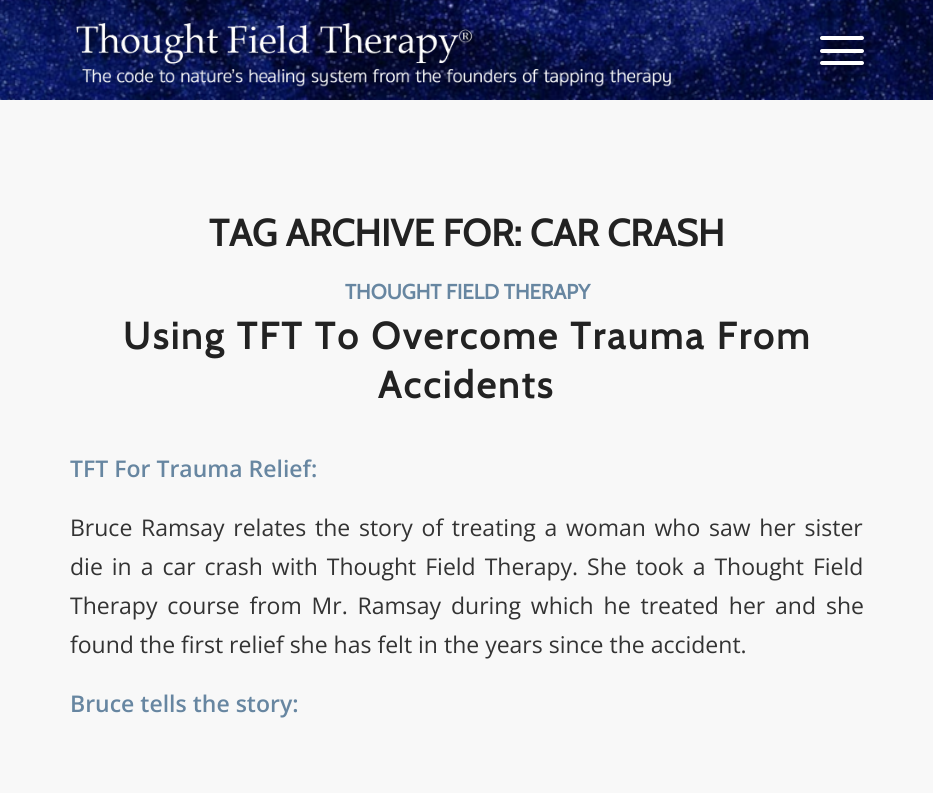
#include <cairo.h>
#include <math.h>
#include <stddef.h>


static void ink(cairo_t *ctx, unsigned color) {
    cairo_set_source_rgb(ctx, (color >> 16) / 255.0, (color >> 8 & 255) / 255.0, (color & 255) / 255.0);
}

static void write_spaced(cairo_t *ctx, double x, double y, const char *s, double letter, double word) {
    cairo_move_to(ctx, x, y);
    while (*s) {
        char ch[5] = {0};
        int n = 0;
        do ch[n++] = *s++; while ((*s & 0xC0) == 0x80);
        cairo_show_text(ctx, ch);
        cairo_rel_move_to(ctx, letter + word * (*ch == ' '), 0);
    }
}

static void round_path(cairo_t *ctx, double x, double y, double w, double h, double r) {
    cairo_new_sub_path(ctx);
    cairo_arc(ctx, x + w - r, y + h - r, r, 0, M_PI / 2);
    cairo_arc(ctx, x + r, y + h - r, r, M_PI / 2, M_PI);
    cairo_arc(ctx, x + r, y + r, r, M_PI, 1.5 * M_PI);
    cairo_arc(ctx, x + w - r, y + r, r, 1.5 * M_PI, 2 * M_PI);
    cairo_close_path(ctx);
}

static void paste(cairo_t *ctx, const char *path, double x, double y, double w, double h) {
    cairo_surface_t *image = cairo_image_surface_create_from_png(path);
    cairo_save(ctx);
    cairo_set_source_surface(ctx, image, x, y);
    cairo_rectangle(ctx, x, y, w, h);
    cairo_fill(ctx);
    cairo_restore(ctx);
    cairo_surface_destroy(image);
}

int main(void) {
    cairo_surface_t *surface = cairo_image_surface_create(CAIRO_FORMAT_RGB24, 933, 793);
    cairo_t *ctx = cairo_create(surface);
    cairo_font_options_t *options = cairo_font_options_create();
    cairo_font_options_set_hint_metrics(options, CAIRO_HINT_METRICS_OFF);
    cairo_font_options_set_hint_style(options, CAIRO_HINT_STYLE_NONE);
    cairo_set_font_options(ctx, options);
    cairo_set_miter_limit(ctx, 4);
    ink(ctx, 0xF8F8F8);
    cairo_paint(ctx);
    paste(ctx, "media/1.png", 0, 0, 933, 100);
    paste(ctx, "media/2.png", 76, 22, 596, 65);
    ink(ctx, 0xFFFFFF);
    round_path(ctx, 820, 49, 44, 4, 2);
    cairo_fill(ctx);
    round_path(ctx, 820, 36, 44, 4, 2);
    cairo_fill(ctx);
    round_path(ctx, 820, 61, 44, 4, 2);
    cairo_fill(ctx);
    cairo_select_font_face(ctx, "Cabin", CAIRO_FONT_SLANT_NORMAL, CAIRO_FONT_WEIGHT_BOLD);
    cairo_set_font_size(ctx, 37.5);
    ink(ctx, 0x222222);
    cairo_move_to(ctx, 209, 246);
    cairo_show_text(ctx, "TAG ARCHIVE FOR: CAR CRASH");
    cairo_set_font_size(ctx, 20.75);
    ink(ctx, 0x6786A1);
    cairo_move_to(ctx, 345, 299);
    cairo_show_text(ctx, "THOUGHT FIELD THERAPY");
    cairo_set_font_size(ctx, 37.5);
    ink(ctx, 0x222222);
    write_spaced(ctx, 123, 349, "Using TFT To Overcome Trauma From", 2.5, 0);
    write_spaced(ctx, 378, 398, "Accidents", 2.5, 0);
    cairo_select_font_face(ctx, "Open Sans SemiBold", CAIRO_FONT_SLANT_NORMAL, CAIRO_FONT_WEIGHT_NORMAL);
    cairo_set_font_size(ctx, 23);
    ink(ctx, 0x6786A1);
    cairo_move_to(ctx, 70, 477);
    cairo_show_text(ctx, "TFT For Trauma Relief:");
    cairo_select_font_face(ctx, "Open Sans", CAIRO_FONT_SLANT_NORMAL, CAIRO_FONT_WEIGHT_NORMAL);
    ink(ctx, 0x333333);
    write_spaced(ctx, 70, 536, "Bruce Ramsay relates the story of treating a woman who saw her sister", 0, 2.75);
    write_spaced(ctx, 70, 575, "die in a car crash with Thought Field Therapy. She took a Thought Field", 0, 3);
    write_spaced(ctx, 70, 614, "Therapy course from Mr. Ramsay during which he treated her and she", 0, 3.9);
    cairo_move_to(ctx, 70, 653);
    cairo_show_text(ctx, "found the first relief she has felt in the years since the accident.");
    cairo_select_font_face(ctx, "Open Sans SemiBold", CAIRO_FONT_SLANT_NORMAL, CAIRO_FONT_WEIGHT_NORMAL);
    ink(ctx, 0x6786A1);
    cairo_move_to(ctx, 70, 712);
    cairo_show_text(ctx, "Bruce tells the story:");
    cairo_surface_write_to_png(surface, "image.png");
    cairo_font_options_destroy(options);
    cairo_destroy(ctx);
    cairo_surface_destroy(surface);
    return 0;
}
